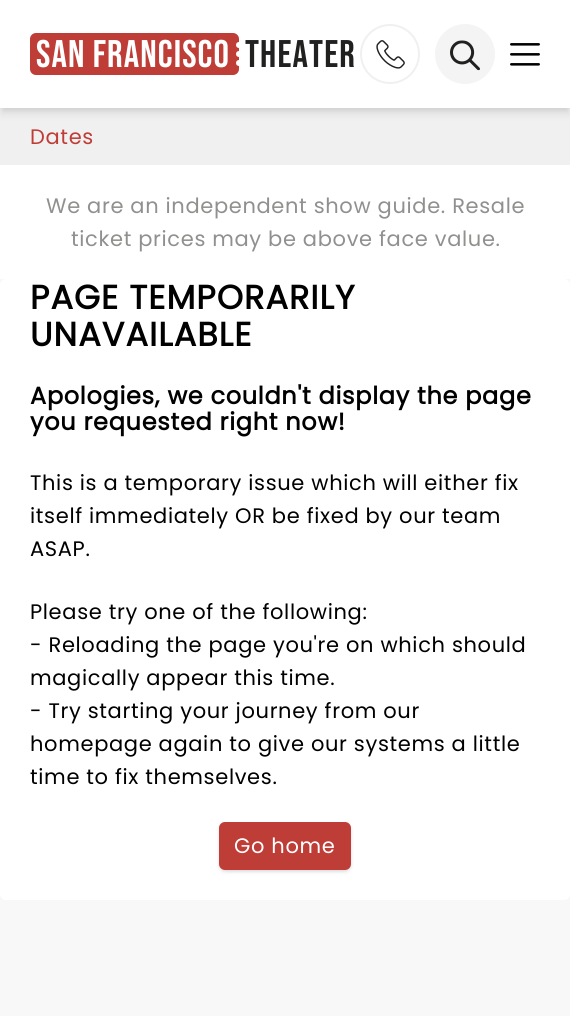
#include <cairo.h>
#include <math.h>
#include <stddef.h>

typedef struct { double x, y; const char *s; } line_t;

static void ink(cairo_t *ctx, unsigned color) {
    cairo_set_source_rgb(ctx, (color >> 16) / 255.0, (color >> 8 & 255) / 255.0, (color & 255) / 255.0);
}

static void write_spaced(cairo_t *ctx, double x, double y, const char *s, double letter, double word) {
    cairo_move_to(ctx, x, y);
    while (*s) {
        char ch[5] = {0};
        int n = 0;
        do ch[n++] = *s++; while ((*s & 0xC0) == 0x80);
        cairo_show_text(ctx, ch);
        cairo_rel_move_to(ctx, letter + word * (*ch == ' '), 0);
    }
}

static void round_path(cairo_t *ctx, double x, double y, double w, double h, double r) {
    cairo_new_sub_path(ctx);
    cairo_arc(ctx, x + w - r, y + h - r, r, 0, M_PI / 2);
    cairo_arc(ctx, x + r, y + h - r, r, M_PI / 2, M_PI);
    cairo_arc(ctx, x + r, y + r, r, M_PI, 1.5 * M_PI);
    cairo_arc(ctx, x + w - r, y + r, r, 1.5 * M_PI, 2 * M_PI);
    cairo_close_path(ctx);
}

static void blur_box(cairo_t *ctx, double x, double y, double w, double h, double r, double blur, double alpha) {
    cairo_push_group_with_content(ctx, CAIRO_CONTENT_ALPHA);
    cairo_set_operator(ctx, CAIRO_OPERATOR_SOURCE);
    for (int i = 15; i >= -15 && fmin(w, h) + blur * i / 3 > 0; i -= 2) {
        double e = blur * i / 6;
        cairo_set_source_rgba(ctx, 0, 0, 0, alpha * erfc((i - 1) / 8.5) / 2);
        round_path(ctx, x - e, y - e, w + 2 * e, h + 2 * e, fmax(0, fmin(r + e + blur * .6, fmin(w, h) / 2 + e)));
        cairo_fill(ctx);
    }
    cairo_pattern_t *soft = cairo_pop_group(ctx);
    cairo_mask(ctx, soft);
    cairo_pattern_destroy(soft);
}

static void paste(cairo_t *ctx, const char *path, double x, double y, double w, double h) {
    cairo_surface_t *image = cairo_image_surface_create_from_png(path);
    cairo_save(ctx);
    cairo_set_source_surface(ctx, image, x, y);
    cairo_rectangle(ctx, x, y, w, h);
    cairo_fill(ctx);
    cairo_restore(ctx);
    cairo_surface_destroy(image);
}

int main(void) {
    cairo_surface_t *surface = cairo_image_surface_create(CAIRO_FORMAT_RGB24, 570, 1016);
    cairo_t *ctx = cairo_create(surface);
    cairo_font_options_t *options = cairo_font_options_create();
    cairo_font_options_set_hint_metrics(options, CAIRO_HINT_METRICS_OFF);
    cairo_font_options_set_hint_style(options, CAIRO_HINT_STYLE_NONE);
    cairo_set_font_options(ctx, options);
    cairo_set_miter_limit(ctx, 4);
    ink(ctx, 0xF8F8F8);
    cairo_paint(ctx);
    ink(ctx, 0xF0F0F0);
    cairo_rectangle(ctx, 0, 108, 570, 57);
    cairo_fill(ctx);
    ink(ctx, 0x000000);
    blur_box(ctx, 3, 6, 564, 102, 0, 3, 0.1);
    blur_box(ctx, 2, 8, 567, 105, 0, 4.5, 0.1);
    ink(ctx, 0xFFFFFF);
    cairo_rectangle(ctx, 0, 0, 570, 108);
    cairo_fill(ctx);
    ink(ctx, 0xBF3D37);
    round_path(ctx, 30, 33, 209, 42, 6);
    cairo_fill(ctx);
    cairo_select_font_face(ctx, "Bebas Neue", CAIRO_FONT_SLANT_NORMAL, CAIRO_FONT_WEIGHT_NORMAL);
    cairo_set_font_size(ctx, 38.5);
    ink(ctx, 0xFFFFFF);
    write_spaced(ctx, 36, 67, "San Francisco", 1.1, 0);
    cairo_new_path(ctx);
    cairo_arc(ctx, 239, 45, 3, 0, 2 * M_PI);
    cairo_fill(ctx);
    cairo_arc(ctx, 239, 54, 3, 0, 2 * M_PI);
    cairo_fill(ctx);
    cairo_arc(ctx, 239, 63, 3, 0, 2 * M_PI);
    cairo_fill(ctx);
    ink(ctx, 0x212120);
    write_spaced(ctx, 245, 67, "Theater", 1.1, 0);
    cairo_new_path(ctx);
    cairo_arc(ctx, 390, 54, 29, 0, 2 * M_PI);
    ink(ctx, 0xF0F0F0);
    cairo_stroke(ctx);
    paste(ctx, "media/1.png", 376, 40, 29, 29);
    ink(ctx, 0xF4F4F4);
    cairo_arc(ctx, 465, 54, 30, 0, 2 * M_PI);
    cairo_fill(ctx);
    paste(ctx, "media/2.png", 450, 40, 30, 31);
    paste(ctx, "media/3.png", 510, 43, 30, 23);
    cairo_select_font_face(ctx, "Poppins", CAIRO_FONT_SLANT_NORMAL, CAIRO_FONT_WEIGHT_NORMAL);
    cairo_set_font_size(ctx, 21);
    ink(ctx, 0xBF3D37);
    write_spaced(ctx, 30, 144, "Dates", 0.65, 0);
    ink(ctx, 0xFFFFFF);
    cairo_rectangle(ctx, 0, 165, 570, 114);
    cairo_fill(ctx);
    ink(ctx, 0x90908F);
    write_spaced(ctx, 46, 213, "We are an independent show guide. Resale", 0.65, 0);
    write_spaced(ctx, 71, 246, "ticket prices may be above face value.", 0.65, 0);
    ink(ctx, 0xFFFFFF);
    round_path(ctx, 0, 279, 570, 621, 6);
    cairo_fill(ctx);
    cairo_select_font_face(ctx, "Poppins", CAIRO_FONT_SLANT_NORMAL, CAIRO_FONT_WEIGHT_BOLD);
    cairo_set_font_size(ctx, 33.5);
    ink(ctx, 0x000000);
    write_spaced(ctx, 30, 309, "PAGE TEMPORARILY", 1, 0);
    write_spaced(ctx, 30, 346, "UNAVAILABLE", 1, 0);
    cairo_set_font_size(ctx, 24);
    write_spaced(ctx, 30, 404, "Apologies, we couldn't display the page", 0.7, 0);
    write_spaced(ctx, 30, 430, "you requested right now!", 0.7, 0);
    cairo_select_font_face(ctx, "Poppins", CAIRO_FONT_SLANT_NORMAL, CAIRO_FONT_WEIGHT_NORMAL);
    cairo_set_font_size(ctx, 21);
    {
        static const line_t items[] = {
            {30, 490, "This is a temporary issue which will either fix"},
            {30, 523, "itself immediately OR be fixed by our team"},
            {30, 556, "ASAP."},
            {30, 619, "Please try one of the following:"},
            {30, 652, "- Reloading the page you're on which should"},
            {30, 685, "magically appear this time."},
            {30, 718, "- Try starting your journey from our"},
            {30, 751, "homepage again to give our systems a little"},
            {30, 784, "time to fix themselves."},
        };
        for (size_t i = 0; i < sizeof items / sizeof *items; i++) {
            write_spaced(ctx, items[i].x, items[i].y, items[i].s, 0.65, 0);
        }
    }
    ink(ctx, 0x000000);
    blur_box(ctx, 221, 825, 129, 45, 5, 1.5, 0.1);
    blur_box(ctx, 219, 824, 132, 48, 6, 2, 0.1);
    ink(ctx, 0xBF3D37);
    round_path(ctx, 219, 822, 132, 48, 6);
    cairo_fill(ctx);
    ink(ctx, 0xFFFFFF);
    write_spaced(ctx, 234, 853, "Go home", 0.65, 0);
    cairo_surface_write_to_png(surface, "image.png");
    cairo_font_options_destroy(options);
    cairo_destroy(ctx);
    cairo_surface_destroy(surface);
    return 0;
}
